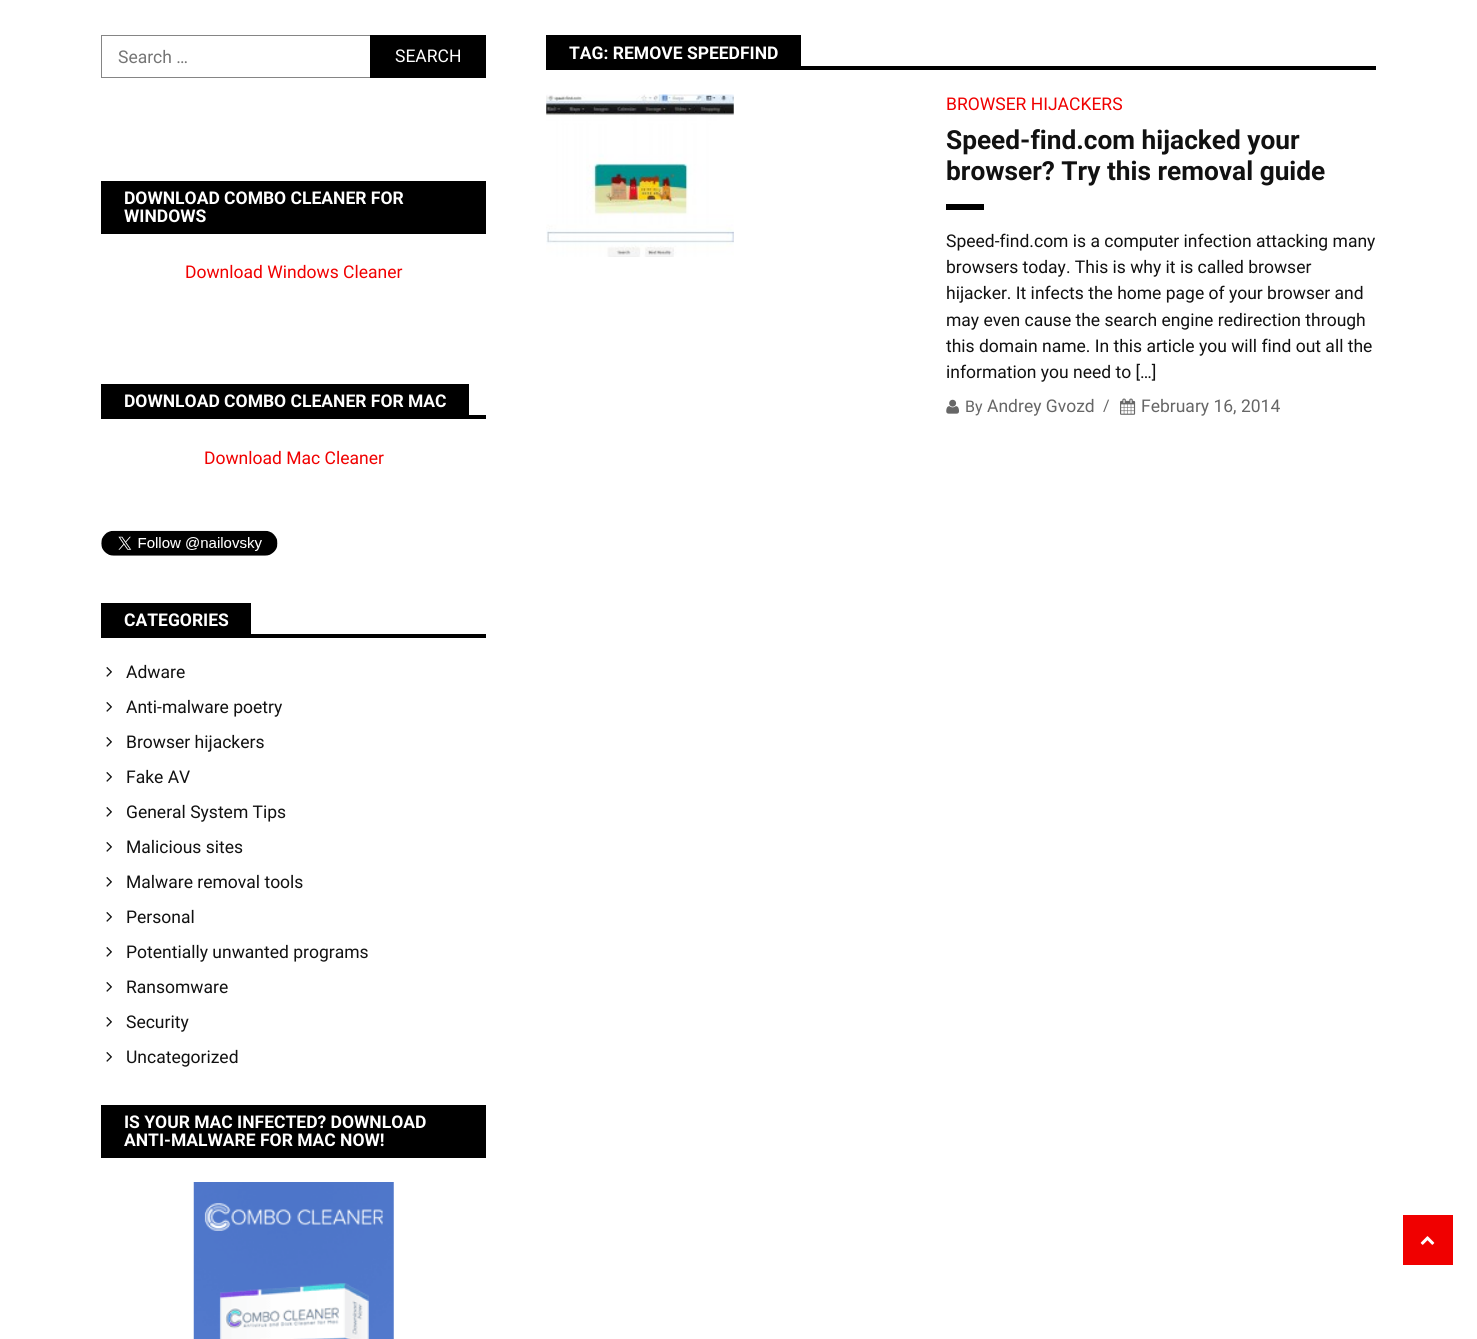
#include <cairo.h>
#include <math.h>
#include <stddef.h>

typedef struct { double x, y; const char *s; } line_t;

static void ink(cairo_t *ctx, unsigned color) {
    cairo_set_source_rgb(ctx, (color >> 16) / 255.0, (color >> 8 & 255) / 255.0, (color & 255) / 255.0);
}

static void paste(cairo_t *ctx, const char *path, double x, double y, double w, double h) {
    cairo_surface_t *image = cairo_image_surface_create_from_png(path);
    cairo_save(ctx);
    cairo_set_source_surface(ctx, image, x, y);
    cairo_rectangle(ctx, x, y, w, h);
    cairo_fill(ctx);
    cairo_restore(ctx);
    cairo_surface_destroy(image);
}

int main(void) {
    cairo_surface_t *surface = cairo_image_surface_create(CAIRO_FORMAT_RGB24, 1477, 1339);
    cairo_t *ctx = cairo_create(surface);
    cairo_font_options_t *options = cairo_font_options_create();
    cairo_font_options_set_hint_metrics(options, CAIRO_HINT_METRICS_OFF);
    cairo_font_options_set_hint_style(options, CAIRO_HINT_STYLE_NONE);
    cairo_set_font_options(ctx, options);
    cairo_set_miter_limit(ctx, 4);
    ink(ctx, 0xFFFFFF);
    cairo_paint(ctx);
    cairo_rectangle(ctx, 101.5, 35.5, 384, 42);
    ink(ctx, 0x858585);
    cairo_set_line_width(ctx, 1);
    cairo_stroke(ctx);
    cairo_select_font_face(ctx, "Roboto", CAIRO_FONT_SLANT_NORMAL, CAIRO_FONT_WEIGHT_NORMAL);
    cairo_set_font_size(ctx, 17.5);
    ink(ctx, 0x757575);
    cairo_move_to(ctx, 118, 63);
    cairo_show_text(ctx, "Search …");
    ink(ctx, 0x000000);
    cairo_rectangle(ctx, 370, 35, 116, 43);
    cairo_fill(ctx);
    ink(ctx, 0xFFFFFF);
    cairo_move_to(ctx, 395, 62);
    cairo_show_text(ctx, "SEARCH");
    ink(ctx, 0x000000);
    cairo_rectangle(ctx, 101, 181, 385, 53);
    cairo_fill(ctx);
    cairo_select_font_face(ctx, "Roboto", CAIRO_FONT_SLANT_NORMAL, CAIRO_FONT_WEIGHT_BOLD);
    ink(ctx, 0xFFFFFF);
    cairo_move_to(ctx, 124, 204);
    cairo_show_text(ctx, "DOWNLOAD COMBO CLEANER FOR");
    cairo_move_to(ctx, 124, 222);
    cairo_show_text(ctx, "WINDOWS");
    cairo_select_font_face(ctx, "Roboto", CAIRO_FONT_SLANT_NORMAL, CAIRO_FONT_WEIGHT_NORMAL);
    ink(ctx, 0xF00000);
    cairo_move_to(ctx, 185, 278);
    cairo_show_text(ctx, "Download Windows Cleaner");
    ink(ctx, 0x000000);
    cairo_rectangle(ctx, 101, 384, 368, 31);
    cairo_fill(ctx);
    cairo_select_font_face(ctx, "Roboto", CAIRO_FONT_SLANT_NORMAL, CAIRO_FONT_WEIGHT_BOLD);
    ink(ctx, 0xFFFFFF);
    cairo_move_to(ctx, 124, 407);
    cairo_show_text(ctx, "DOWNLOAD COMBO CLEANER FOR MAC");
    ink(ctx, 0x000000);
    cairo_rectangle(ctx, 101, 415, 385, 4);
    cairo_fill(ctx);
    cairo_select_font_face(ctx, "Roboto", CAIRO_FONT_SLANT_NORMAL, CAIRO_FONT_WEIGHT_NORMAL);
    ink(ctx, 0xF00000);
    cairo_move_to(ctx, 204, 464);
    cairo_show_text(ctx, "Download Mac Cleaner");
    paste(ctx, "media/1.png", 101, 530, 177, 26);
    ink(ctx, 0x000000);
    cairo_rectangle(ctx, 101, 603, 150, 31);
    cairo_fill(ctx);
    cairo_select_font_face(ctx, "Roboto", CAIRO_FONT_SLANT_NORMAL, CAIRO_FONT_WEIGHT_BOLD);
    ink(ctx, 0xFFFFFF);
    cairo_move_to(ctx, 124, 626);
    cairo_show_text(ctx, "CATEGORIES");
    ink(ctx, 0x000000);
    cairo_rectangle(ctx, 101, 634, 385, 4);
    cairo_fill(ctx);
    paste(ctx, "media/2.png", 106, 667, 6, 10);
    cairo_select_font_face(ctx, "Roboto", CAIRO_FONT_SLANT_NORMAL, CAIRO_FONT_WEIGHT_NORMAL);
    ink(ctx, 0x111111);
    cairo_move_to(ctx, 126, 678);
    cairo_show_text(ctx, "Adware");
    paste(ctx, "media/2.png", 106, 702, 6, 10);
    cairo_move_to(ctx, 126, 713);
    cairo_show_text(ctx, "Anti-malware poetry");
    paste(ctx, "media/2.png", 106, 737, 6, 10);
    cairo_move_to(ctx, 126, 748);
    cairo_show_text(ctx, "Browser hijackers");
    paste(ctx, "media/2.png", 106, 772, 6, 10);
    cairo_move_to(ctx, 126, 783);
    cairo_show_text(ctx, "Fake AV");
    paste(ctx, "media/2.png", 106, 807, 6, 10);
    cairo_move_to(ctx, 126, 818);
    cairo_show_text(ctx, "General System Tips");
    paste(ctx, "media/2.png", 106, 842, 6, 10);
    cairo_move_to(ctx, 126, 853);
    cairo_show_text(ctx, "Malicious sites");
    paste(ctx, "media/2.png", 106, 877, 6, 10);
    cairo_move_to(ctx, 126, 888);
    cairo_show_text(ctx, "Malware removal tools");
    paste(ctx, "media/2.png", 106, 912, 6, 10);
    cairo_move_to(ctx, 126, 923);
    cairo_show_text(ctx, "Personal");
    paste(ctx, "media/2.png", 106, 947, 6, 10);
    cairo_move_to(ctx, 126, 958);
    cairo_show_text(ctx, "Potentially unwanted programs");
    paste(ctx, "media/2.png", 106, 982, 6, 10);
    cairo_move_to(ctx, 126, 993);
    cairo_show_text(ctx, "Ransomware");
    paste(ctx, "media/2.png", 106, 1017, 6, 10);
    cairo_move_to(ctx, 126, 1028);
    cairo_show_text(ctx, "Security");
    paste(ctx, "media/2.png", 106, 1052, 6, 10);
    cairo_move_to(ctx, 126, 1063);
    cairo_show_text(ctx, "Uncategorized");
    ink(ctx, 0x000000);
    cairo_rectangle(ctx, 101, 1105, 385, 53);
    cairo_fill(ctx);
    cairo_select_font_face(ctx, "Roboto", CAIRO_FONT_SLANT_NORMAL, CAIRO_FONT_WEIGHT_BOLD);
    ink(ctx, 0xFFFFFF);
    cairo_move_to(ctx, 124, 1128);
    cairo_show_text(ctx, "IS YOUR MAC INFECTED? DOWNLOAD");
    cairo_move_to(ctx, 124, 1146);
    cairo_show_text(ctx, "ANTI-MALWARE FOR MAC NOW!");
    paste(ctx, "media/3.png", 193, 1182, 201, 157);
    ink(ctx, 0x000000);
    cairo_rectangle(ctx, 546, 35, 255, 31);
    cairo_fill(ctx);
    ink(ctx, 0xFFFFFF);
    cairo_move_to(ctx, 569, 59);
    cairo_show_text(ctx, "TAG: REMOVE SPEEDFIND");
    ink(ctx, 0x000000);
    cairo_rectangle(ctx, 546, 66, 830, 4);
    cairo_fill(ctx);
    paste(ctx, "media/4.png", 546, 94, 188, 163);
    cairo_select_font_face(ctx, "Roboto", CAIRO_FONT_SLANT_NORMAL, CAIRO_FONT_WEIGHT_NORMAL);
    ink(ctx, 0xF00000);
    cairo_move_to(ctx, 946, 110);
    cairo_show_text(ctx, "BROWSER HIJACKERS");
    cairo_select_font_face(ctx, "Roboto", CAIRO_FONT_SLANT_NORMAL, CAIRO_FONT_WEIGHT_BOLD);
    cairo_set_font_size(ctx, 26.25);
    ink(ctx, 0x111111);
    cairo_move_to(ctx, 946, 149);
    cairo_show_text(ctx, "Speed-find.com hijacked your");
    cairo_move_to(ctx, 946, 180);
    cairo_show_text(ctx, "browser? Try this removal guide");
    ink(ctx, 0x000000);
    cairo_rectangle(ctx, 946, 204, 38, 6);
    cairo_fill(ctx);
    cairo_select_font_face(ctx, "Roboto", CAIRO_FONT_SLANT_NORMAL, CAIRO_FONT_WEIGHT_NORMAL);
    cairo_set_font_size(ctx, 17.5);
    ink(ctx, 0x111111);
    {
        static const line_t items[] = {
            {946, 247, "Speed-find.com is a computer infection attacking many"},
            {946, 273, "browsers today. This is why it is called browser"},
            {946, 299, "hijacker. It infects the home page of your browser and"},
            {946, 326, "may even cause the search engine redirection through"},
            {946, 352, "this domain name. In this article you will find out all the"},
            {946, 378, "information you need to […]"},
        };
        for (size_t i = 0; i < sizeof items / sizeof *items; i++) {
            cairo_move_to(ctx, items[i].x, items[i].y);
            cairo_show_text(ctx, items[i].s);
        }
    }
    paste(ctx, "media/5.png", 946, 399, 13, 15);
    cairo_set_font_size(ctx, 16);
    ink(ctx, 0x666666);
    cairo_move_to(ctx, 965, 412);
    cairo_show_text(ctx, "By");
    cairo_set_font_size(ctx, 17.5);
    cairo_move_to(ctx, 987, 412);
    cairo_show_text(ctx, "Andrey Gvozd");
    cairo_set_font_size(ctx, 16);
    cairo_move_to(ctx, 1103, 411);
    cairo_show_text(ctx, "/");
    paste(ctx, "media/6.png", 1120, 398, 16, 17);
    cairo_set_font_size(ctx, 17.5);
    cairo_move_to(ctx, 1141, 412);
    cairo_show_text(ctx, "February 16, 2014");
    ink(ctx, 0xF00000);
    cairo_rectangle(ctx, 1403, 1215, 50, 50);
    cairo_fill(ctx);
    paste(ctx, "media/7.png", 1420, 1236, 15, 9);
    cairo_surface_write_to_png(surface, "image.png");
    cairo_font_options_destroy(options);
    cairo_destroy(ctx);
    cairo_surface_destroy(surface);
    return 0;
}
